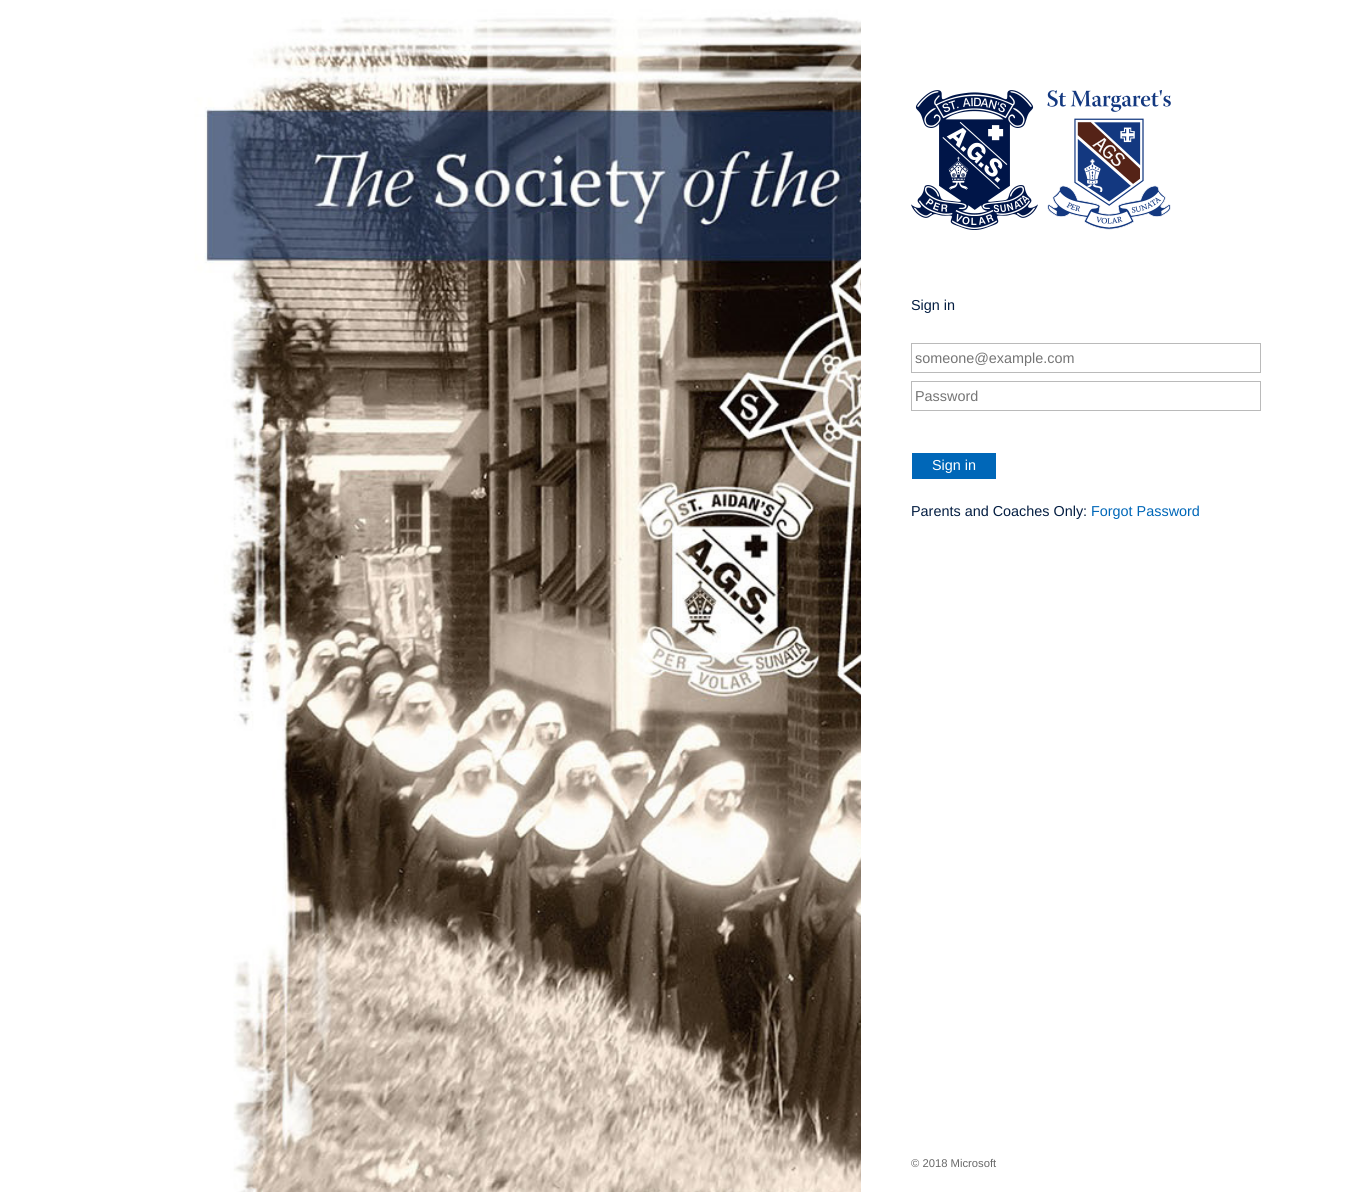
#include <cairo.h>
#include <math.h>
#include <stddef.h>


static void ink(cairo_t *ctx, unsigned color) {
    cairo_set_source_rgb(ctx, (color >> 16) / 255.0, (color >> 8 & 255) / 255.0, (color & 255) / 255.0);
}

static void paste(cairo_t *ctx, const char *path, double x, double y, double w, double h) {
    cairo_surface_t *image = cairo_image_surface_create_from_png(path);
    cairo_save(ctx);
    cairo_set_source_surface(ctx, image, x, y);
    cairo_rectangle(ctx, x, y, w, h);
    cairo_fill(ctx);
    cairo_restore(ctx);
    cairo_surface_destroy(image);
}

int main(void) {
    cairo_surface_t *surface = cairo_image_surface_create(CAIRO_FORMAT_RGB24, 1361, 1192);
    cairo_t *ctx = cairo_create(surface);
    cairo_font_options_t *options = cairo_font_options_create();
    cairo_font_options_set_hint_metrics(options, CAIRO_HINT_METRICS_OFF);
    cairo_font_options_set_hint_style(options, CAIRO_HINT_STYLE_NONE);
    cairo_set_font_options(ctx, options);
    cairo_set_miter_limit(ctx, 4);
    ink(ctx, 0xFFFFFF);
    cairo_paint(ctx);
    paste(ctx, "media/1.png", 0, 0, 861, 1192);
    paste(ctx, "media/2.png", 911, 90, 260, 140);
    cairo_select_font_face(ctx, "Liberation Sans", CAIRO_FONT_SLANT_NORMAL, CAIRO_FONT_WEIGHT_NORMAL);
    cairo_set_font_size(ctx, 14.4);
    ink(ctx, 0x041E42);
    cairo_move_to(ctx, 911, 310);
    cairo_show_text(ctx, "Sign in");
    cairo_rectangle(ctx, 911.5, 343.5, 349, 29);
    ink(ctx, 0xBABABA);
    cairo_set_line_width(ctx, 1);
    cairo_stroke(ctx);
    ink(ctx, 0x757575);
    cairo_move_to(ctx, 915, 363);
    cairo_show_text(ctx, "someone@example.com");
    cairo_rectangle(ctx, 911.5, 381.5, 349, 29);
    ink(ctx, 0xBABABA);
    cairo_stroke(ctx);
    ink(ctx, 0x757575);
    cairo_move_to(ctx, 915, 401);
    cairo_show_text(ctx, "Password");
    ink(ctx, 0x0067B8);
    cairo_rectangle(ctx, 912, 453, 84, 26);
    cairo_fill(ctx);
    ink(ctx, 0xFFFFFF);
    cairo_move_to(ctx, 932, 470);
    cairo_show_text(ctx, "Sign in");
    ink(ctx, 0x041E42);
    cairo_move_to(ctx, 911, 516);
    cairo_show_text(ctx, "Parents and Coaches Only:");
    ink(ctx, 0x0067B8);
    cairo_move_to(ctx, 1091, 516);
    cairo_show_text(ctx, "Forgot Password");
    cairo_set_font_size(ctx, 11.25);
    ink(ctx, 0x696969);
    cairo_move_to(ctx, 911, 1167);
    cairo_show_text(ctx, "© 2018 Microsoft");
    cairo_surface_write_to_png(surface, "image.png");
    cairo_font_options_destroy(options);
    cairo_destroy(ctx);
    cairo_surface_destroy(surface);
    return 0;
}
